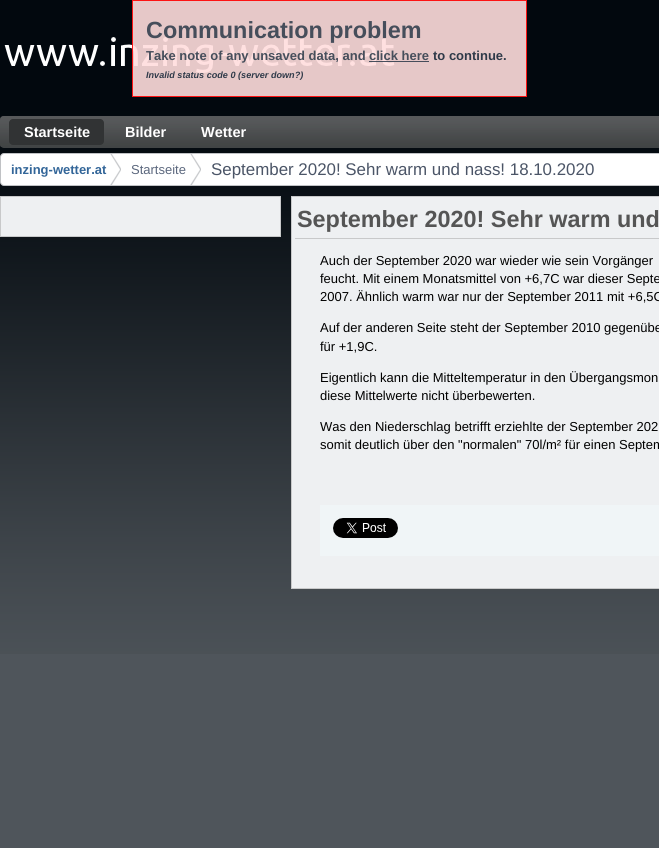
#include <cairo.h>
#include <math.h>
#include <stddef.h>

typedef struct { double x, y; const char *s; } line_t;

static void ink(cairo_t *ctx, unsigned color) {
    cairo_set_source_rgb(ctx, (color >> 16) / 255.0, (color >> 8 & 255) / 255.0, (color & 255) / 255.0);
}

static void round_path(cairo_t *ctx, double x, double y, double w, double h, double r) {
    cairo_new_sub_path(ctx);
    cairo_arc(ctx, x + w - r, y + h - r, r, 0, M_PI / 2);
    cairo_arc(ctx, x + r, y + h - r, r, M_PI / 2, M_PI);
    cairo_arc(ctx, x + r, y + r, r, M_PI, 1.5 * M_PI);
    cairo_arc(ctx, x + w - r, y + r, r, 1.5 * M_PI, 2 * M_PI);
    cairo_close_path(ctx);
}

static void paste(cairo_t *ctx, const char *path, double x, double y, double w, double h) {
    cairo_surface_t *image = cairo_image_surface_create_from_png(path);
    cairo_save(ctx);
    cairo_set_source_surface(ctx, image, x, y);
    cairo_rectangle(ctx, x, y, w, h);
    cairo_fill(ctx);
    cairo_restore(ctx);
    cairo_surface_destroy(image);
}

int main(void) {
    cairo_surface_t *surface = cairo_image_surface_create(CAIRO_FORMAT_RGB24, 659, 848);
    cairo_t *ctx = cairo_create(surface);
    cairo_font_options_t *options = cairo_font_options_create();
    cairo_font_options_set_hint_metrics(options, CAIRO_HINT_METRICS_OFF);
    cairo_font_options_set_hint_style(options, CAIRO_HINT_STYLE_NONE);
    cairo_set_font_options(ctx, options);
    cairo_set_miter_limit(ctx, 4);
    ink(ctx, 0x4F555B);
    cairo_paint(ctx);
    paste(ctx, "media/1.png", 0, 0, 659, 654);
    paste(ctx, "media/2.png", 4, 37, 391, 36);
    cairo_set_source_rgba(ctx, 1, 0.867, 0.867, 0.9);
    cairo_rectangle(ctx, 132, 0, 395, 97);
    cairo_fill(ctx);
    cairo_rectangle(ctx, 132.5, 0.5, 394, 96);
    cairo_set_source_rgba(ctx, 1, 0, 0, 0.9);
    cairo_set_line_width(ctx, 1);
    cairo_stroke(ctx);
    cairo_select_font_face(ctx, "Liberation Sans", CAIRO_FONT_SLANT_NORMAL, CAIRO_FONT_WEIGHT_BOLD);
    cairo_set_font_size(ctx, 23.4);
    ink(ctx, 0x464E5B);
    cairo_move_to(ctx, 146, 38);
    cairo_show_text(ctx, "Communication problem");
    cairo_set_font_size(ctx, 13);
    cairo_move_to(ctx, 146, 60);
    cairo_show_text(ctx, "Take note of any unsaved data, and");
    cairo_move_to(ctx, 369, 60);
    cairo_show_text(ctx, "click here");
    cairo_set_source_rgba(ctx, 0.204, 0.251, 0.31, 0.9);
    cairo_rectangle(ctx, 369, 61, 60, 1);
    cairo_fill(ctx);
    ink(ctx, 0x2F3A49);
    cairo_move_to(ctx, 433, 60);
    cairo_show_text(ctx, "to continue.");
    cairo_select_font_face(ctx, "Liberation Sans", CAIRO_FONT_SLANT_ITALIC, CAIRO_FONT_WEIGHT_BOLD);
    cairo_set_font_size(ctx, 9.1);
    cairo_move_to(ctx, 146, 78);
    cairo_show_text(ctx, "Invalid status code 0 (server down?)");
    ink(ctx, 0x414445);
    round_path(ctx, 0, 116, 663, 32, 4);
    cairo_fill(ctx);
    paste(ctx, "media/3.png", 0, 116, 659, 31);
    ink(ctx, 0x313334);
    round_path(ctx, 9, 119, 95, 26, 4);
    cairo_fill(ctx);
    cairo_select_font_face(ctx, "Liberation Sans", CAIRO_FONT_SLANT_NORMAL, CAIRO_FONT_WEIGHT_BOLD);
    cairo_set_font_size(ctx, 14.5);
    ink(ctx, 0xFFFFFF);
    {
        static const line_t items[] = {
            {24, 137, "Startseite"},
            {125, 137, "Bilder"},
            {201, 137, "Wetter"},
        };
        for (size_t i = 0; i < sizeof items / sizeof *items; i++) {
            cairo_move_to(ctx, items[i].x, items[i].y);
            cairo_show_text(ctx, items[i].s);
        }
    }
    round_path(ctx, 0.5, 153.5, 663, 32, 3.5);
    cairo_fill_preserve(ctx);
    ink(ctx, 0xC0C2C5);
    cairo_stroke(ctx);
    paste(ctx, "media/4.png", 110, 154, 11, 31);
    cairo_set_font_size(ctx, 13);
    ink(ctx, 0x336699);
    cairo_move_to(ctx, 11, 174);
    cairo_show_text(ctx, "inzing-wetter.at");
    paste(ctx, "media/4.png", 190, 154, 11, 31);
    cairo_select_font_face(ctx, "Liberation Sans", CAIRO_FONT_SLANT_NORMAL, CAIRO_FONT_WEIGHT_NORMAL);
    ink(ctx, 0x5B677D);
    cairo_move_to(ctx, 131, 174);
    cairo_show_text(ctx, "Startseite");
    cairo_set_font_size(ctx, 16.9);
    ink(ctx, 0x4B5567);
    cairo_move_to(ctx, 211, 175);
    cairo_show_text(ctx, "September 2020! Sehr warm und nass! 18.10.2020");
    ink(ctx, 0xEEF0F2);
    cairo_rectangle(ctx, 0.5, 196.5, 280, 40);
    cairo_fill_preserve(ctx);
    ink(ctx, 0xC8C9CA);
    cairo_stroke(ctx);
    ink(ctx, 0xEEF0F2);
    cairo_rectangle(ctx, 291.5, 196.5, 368, 392);
    cairo_fill_preserve(ctx);
    ink(ctx, 0xC8C9CA);
    cairo_stroke(ctx);
    cairo_rectangle(ctx, 295, 238, 364, 1);
    cairo_fill(ctx);
    cairo_select_font_face(ctx, "Liberation Sans", CAIRO_FONT_SLANT_NORMAL, CAIRO_FONT_WEIGHT_BOLD);
    cairo_set_font_size(ctx, 23.4);
    ink(ctx, 0x555555);
    cairo_move_to(ctx, 297, 227);
    cairo_show_text(ctx, "September 2020! Sehr warm und");
    cairo_select_font_face(ctx, "Liberation Sans", CAIRO_FONT_SLANT_NORMAL, CAIRO_FONT_WEIGHT_NORMAL);
    cairo_set_font_size(ctx, 13);
    ink(ctx, 0x000000);
    {
        static const line_t items[] = {
            {320, 265, "Auch der September 2020 war wieder wie sein Vorgänger"},
            {320, 283, "feucht. Mit einem Monatsmittel von +6,7C war dieser Septe"},
            {320, 301, "2007. Ähnlich warm war nur der September 2011 mit +6,5C"},
            {320, 332, "Auf der anderen Seite steht der September 2010 gegenübe"},
            {320, 351, "für +1,9C."},
            {320, 382, "Eigentlich kann die Mitteltemperatur in den Übergangsmon"},
            {320, 400, "diese Mittelwerte nicht überbewerten."},
            {320, 431, "Was den Niederschlag betrifft erziehlte der September 202"},
            {320, 449, "somit deutlich über den \"normalen\" 70l/m² für einen Septem"},
        };
        for (size_t i = 0; i < sizeof items / sizeof *items; i++) {
            cairo_move_to(ctx, items[i].x, items[i].y);
            cairo_show_text(ctx, items[i].s);
        }
    }
    ink(ctx, 0xF0F5F7);
    cairo_rectangle(ctx, 320, 505, 339, 51);
    cairo_fill(ctx);
    paste(ctx, "media/5.png", 333, 518, 65, 20);
    cairo_surface_write_to_png(surface, "image.png");
    cairo_font_options_destroy(options);
    cairo_destroy(ctx);
    cairo_surface_destroy(surface);
    return 0;
}
